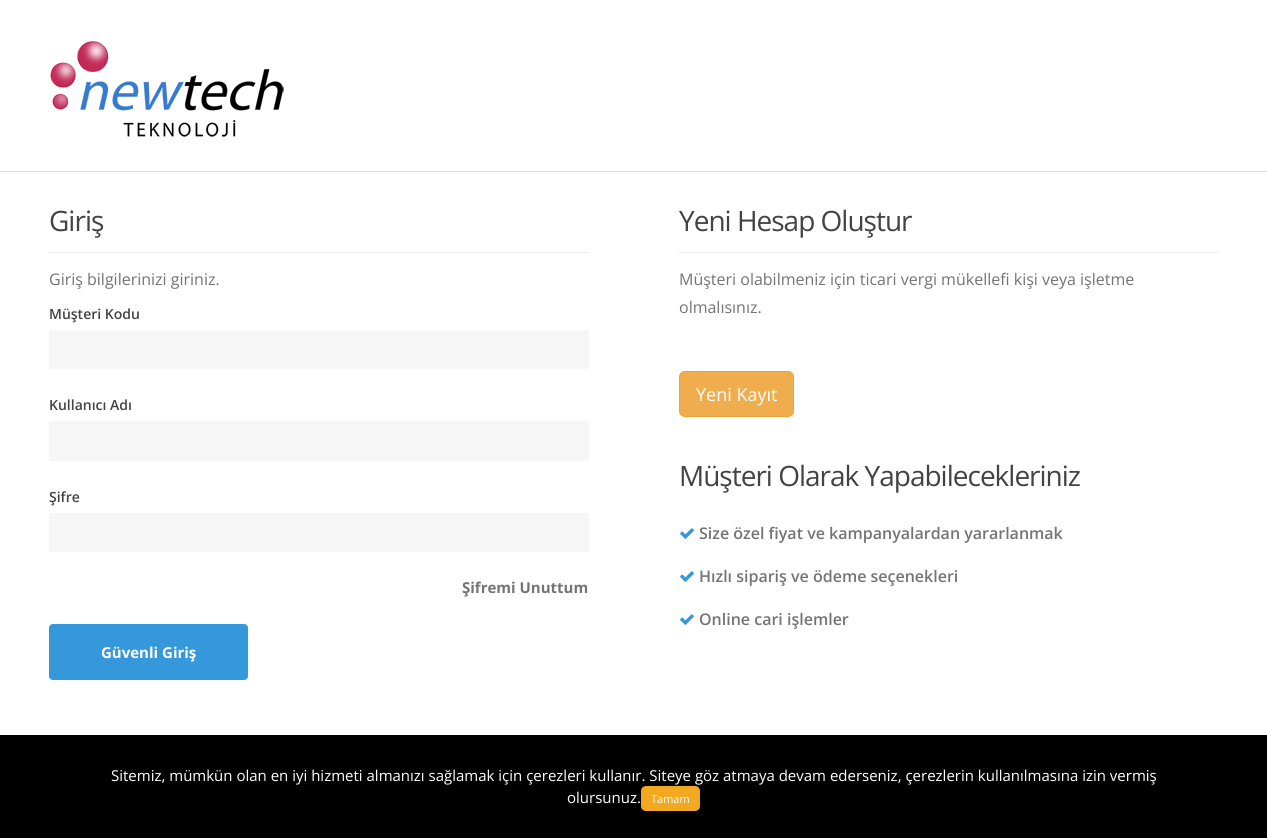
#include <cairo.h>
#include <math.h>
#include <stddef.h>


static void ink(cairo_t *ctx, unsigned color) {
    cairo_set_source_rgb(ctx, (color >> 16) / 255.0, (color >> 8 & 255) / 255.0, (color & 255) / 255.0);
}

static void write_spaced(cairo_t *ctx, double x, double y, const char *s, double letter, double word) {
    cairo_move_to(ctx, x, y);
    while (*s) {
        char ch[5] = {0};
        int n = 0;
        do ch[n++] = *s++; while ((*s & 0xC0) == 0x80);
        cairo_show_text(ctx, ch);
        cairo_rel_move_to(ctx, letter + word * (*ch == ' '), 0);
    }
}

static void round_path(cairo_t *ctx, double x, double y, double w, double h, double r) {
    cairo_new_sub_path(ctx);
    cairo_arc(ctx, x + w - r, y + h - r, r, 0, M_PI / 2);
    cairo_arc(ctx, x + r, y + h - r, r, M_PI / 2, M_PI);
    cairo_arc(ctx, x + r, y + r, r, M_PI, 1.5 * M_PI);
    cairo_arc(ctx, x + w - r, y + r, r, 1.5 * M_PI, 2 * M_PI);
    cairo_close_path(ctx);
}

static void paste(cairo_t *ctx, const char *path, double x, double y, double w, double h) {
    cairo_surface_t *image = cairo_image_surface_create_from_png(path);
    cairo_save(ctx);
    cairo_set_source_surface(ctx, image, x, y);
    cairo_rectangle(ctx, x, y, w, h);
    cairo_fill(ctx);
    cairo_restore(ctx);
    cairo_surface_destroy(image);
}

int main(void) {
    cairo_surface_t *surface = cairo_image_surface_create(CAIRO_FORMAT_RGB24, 1267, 838);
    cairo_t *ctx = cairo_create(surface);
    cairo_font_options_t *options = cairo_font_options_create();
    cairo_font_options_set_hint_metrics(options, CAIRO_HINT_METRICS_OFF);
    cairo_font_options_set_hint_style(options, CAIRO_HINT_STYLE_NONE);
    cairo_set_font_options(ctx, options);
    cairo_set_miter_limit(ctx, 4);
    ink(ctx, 0xFFFFFF);
    cairo_paint(ctx);
    ink(ctx, 0xE0E0E0);
    cairo_rectangle(ctx, 0, 171, 1267, 1);
    cairo_fill(ctx);
    paste(ctx, "media/1.png", 50, 41, 234, 96);
    ink(ctx, 0xECECEC);
    cairo_rectangle(ctx, 49, 252, 540, 1);
    cairo_fill(ctx);
    cairo_select_font_face(ctx, "Open Sans", CAIRO_FONT_SLANT_NORMAL, CAIRO_FONT_WEIGHT_NORMAL);
    cairo_set_font_size(ctx, 28);
    ink(ctx, 0x434343);
    write_spaced(ctx, 49, 231, "Giriş", -1, 0);
    cairo_set_font_size(ctx, 16);
    ink(ctx, 0x747474);
    cairo_move_to(ctx, 49, 285);
    cairo_show_text(ctx, "Giriş bilgilerinizi giriniz.");
    cairo_select_font_face(ctx, "Open Sans SemiBold", CAIRO_FONT_SLANT_NORMAL, CAIRO_FONT_WEIGHT_NORMAL);
    cairo_set_font_size(ctx, 14);
    ink(ctx, 0x434343);
    cairo_move_to(ctx, 49, 319);
    cairo_show_text(ctx, "Müşteri Kodu");
    ink(ctx, 0xF6F6F6);
    cairo_rectangle(ctx, 49, 330, 540, 39);
    cairo_fill(ctx);
    ink(ctx, 0x434343);
    cairo_move_to(ctx, 49, 410);
    cairo_show_text(ctx, "Kullanıcı Adı");
    ink(ctx, 0xF6F6F6);
    cairo_rectangle(ctx, 49, 421, 540, 40);
    cairo_fill(ctx);
    ink(ctx, 0x434343);
    cairo_move_to(ctx, 49, 502);
    cairo_show_text(ctx, "Şifre");
    ink(ctx, 0xF6F6F6);
    cairo_rectangle(ctx, 49, 513, 540, 39);
    cairo_fill(ctx);
    cairo_select_font_face(ctx, "Open Sans", CAIRO_FONT_SLANT_NORMAL, CAIRO_FONT_WEIGHT_BOLD);
    cairo_set_font_size(ctx, 15);
    ink(ctx, 0x747474);
    cairo_move_to(ctx, 462, 593);
    cairo_show_text(ctx, "Şifremi Unuttum");
    ink(ctx, 0x3498DB);
    round_path(ctx, 49, 624, 199, 56, 4);
    cairo_fill(ctx);
    ink(ctx, 0xFFFFFF);
    cairo_move_to(ctx, 101, 658);
    cairo_show_text(ctx, "Güvenli Giriş");
    ink(ctx, 0xECECEC);
    cairo_rectangle(ctx, 679, 252, 540, 1);
    cairo_fill(ctx);
    cairo_select_font_face(ctx, "Open Sans", CAIRO_FONT_SLANT_NORMAL, CAIRO_FONT_WEIGHT_NORMAL);
    cairo_set_font_size(ctx, 28);
    ink(ctx, 0x434343);
    write_spaced(ctx, 679, 231, "Yeni Hesap Oluştur", -1, 0);
    cairo_set_font_size(ctx, 16);
    ink(ctx, 0x747474);
    cairo_move_to(ctx, 679, 285);
    cairo_show_text(ctx, "Müşteri olabilmeniz için ticari vergi mükellefi kişi veya işletme");
    cairo_move_to(ctx, 679, 313);
    cairo_show_text(ctx, "olmalısınız.");
    ink(ctx, 0xF0AD4E);
    round_path(ctx, 679.5, 371.5, 114, 45, 5.5);
    cairo_fill_preserve(ctx);
    ink(ctx, 0xEEA236);
    cairo_set_line_width(ctx, 1);
    cairo_stroke(ctx);
    cairo_set_font_size(ctx, 18);
    ink(ctx, 0xFFFFFF);
    cairo_move_to(ctx, 696, 401);
    cairo_show_text(ctx, "Yeni Kayıt");
    cairo_set_font_size(ctx, 28);
    ink(ctx, 0x434343);
    write_spaced(ctx, 679, 486, "Müşteri Olarak Yapabilecekleriniz", -1, 0);
    paste(ctx, "media/2.png", 680, 528, 14, 11);
    cairo_select_font_face(ctx, "Open Sans SemiBold", CAIRO_FONT_SLANT_NORMAL, CAIRO_FONT_WEIGHT_NORMAL);
    cairo_set_font_size(ctx, 16);
    ink(ctx, 0x747474);
    cairo_move_to(ctx, 699, 539);
    cairo_show_text(ctx, "Size özel fiyat ve kampanyalardan yararlanmak");
    paste(ctx, "media/2.png", 680, 571, 14, 11);
    cairo_move_to(ctx, 699, 582);
    cairo_show_text(ctx, "Hızlı sipariş ve ödeme seçenekleri");
    paste(ctx, "media/2.png", 680, 614, 14, 11);
    cairo_move_to(ctx, 699, 625);
    cairo_show_text(ctx, "Online cari işlemler");
    ink(ctx, 0x000000);
    cairo_rectangle(ctx, 0, 735, 1267, 103);
    cairo_fill(ctx);
    cairo_select_font_face(ctx, "Open Sans", CAIRO_FONT_SLANT_NORMAL, CAIRO_FONT_WEIGHT_NORMAL);
    cairo_set_font_size(ctx, 15);
    ink(ctx, 0xFFFFFF);
    cairo_move_to(ctx, 111, 781);
    cairo_show_text(ctx, "Sitemiz, mümkün olan en iyi hizmeti almanızı sağlamak için çerezleri kullanır. Siteye göz atmaya devam ederseniz, çerezlerin kullanılmasına izin vermiş");
    cairo_move_to(ctx, 567, 803);
    cairo_show_text(ctx, "olursunuz.");
    ink(ctx, 0xF2A920);
    round_path(ctx, 641, 786, 59, 25, 5);
    cairo_fill(ctx);
    cairo_set_font_size(ctx, 11);
    ink(ctx, 0xFFFFFF);
    cairo_move_to(ctx, 651, 803);
    cairo_show_text(ctx, "Tamam");
    cairo_surface_write_to_png(surface, "image.png");
    cairo_font_options_destroy(options);
    cairo_destroy(ctx);
    cairo_surface_destroy(surface);
    return 0;
}
